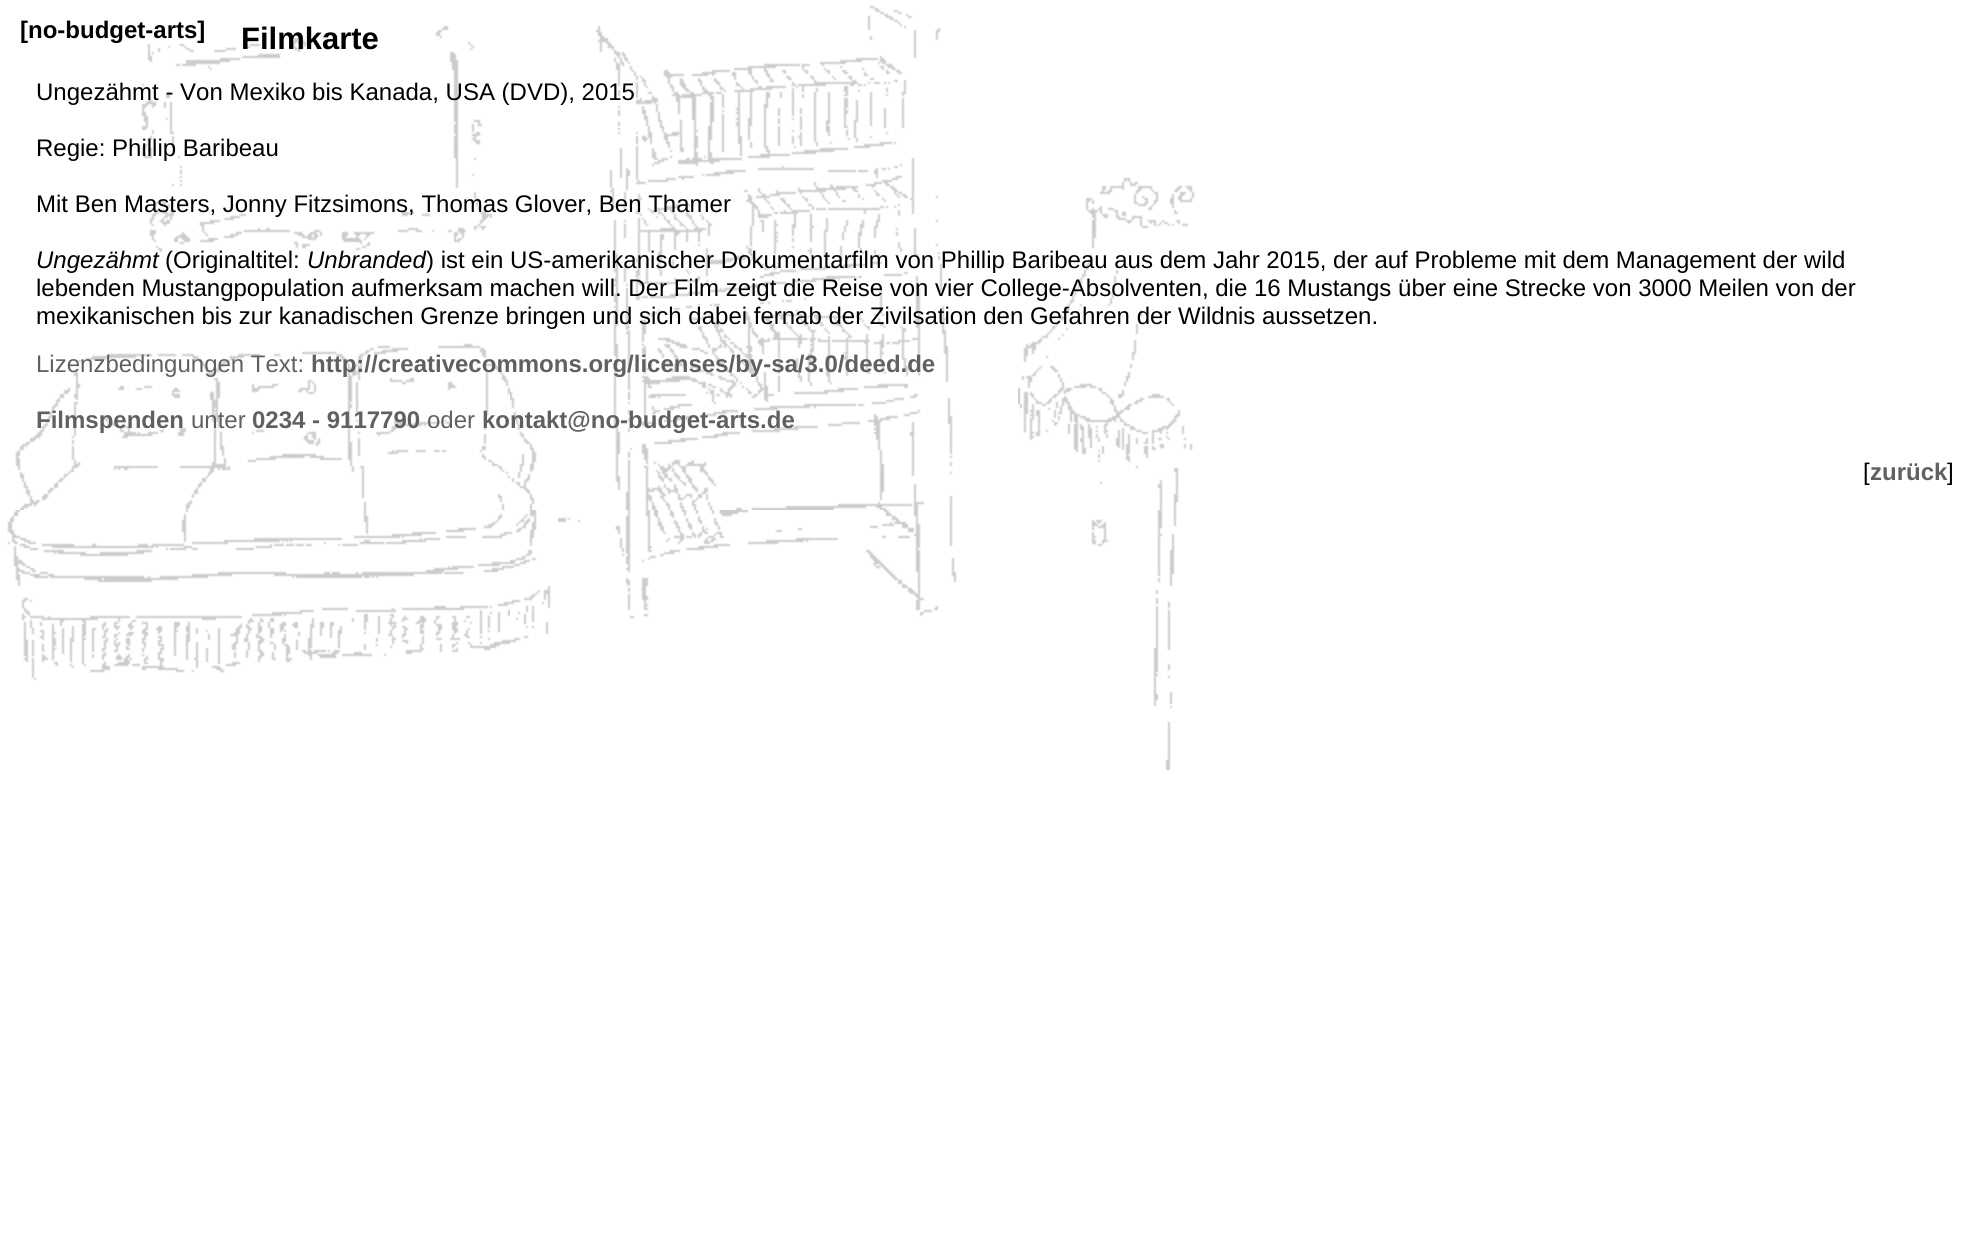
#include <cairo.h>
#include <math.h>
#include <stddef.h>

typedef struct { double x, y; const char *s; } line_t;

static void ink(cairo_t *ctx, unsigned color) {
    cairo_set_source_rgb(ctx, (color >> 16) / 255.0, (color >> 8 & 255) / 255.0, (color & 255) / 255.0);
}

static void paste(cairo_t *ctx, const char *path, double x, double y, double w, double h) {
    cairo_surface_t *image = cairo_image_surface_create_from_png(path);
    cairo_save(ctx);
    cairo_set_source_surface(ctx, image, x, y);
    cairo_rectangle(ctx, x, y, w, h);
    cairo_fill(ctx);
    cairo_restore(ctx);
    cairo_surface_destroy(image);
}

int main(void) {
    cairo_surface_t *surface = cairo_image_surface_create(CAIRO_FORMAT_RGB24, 1970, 1260);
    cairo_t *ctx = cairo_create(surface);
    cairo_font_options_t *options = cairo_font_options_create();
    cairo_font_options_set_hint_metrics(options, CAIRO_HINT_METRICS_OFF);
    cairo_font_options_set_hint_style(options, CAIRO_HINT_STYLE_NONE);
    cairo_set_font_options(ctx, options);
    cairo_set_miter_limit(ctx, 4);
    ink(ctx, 0xFFFFFF);
    cairo_paint(ctx);
    paste(ctx, "media/1.png", 7, 5, 1188, 766);
    ink(ctx, 0xFFFFFF);
    cairo_rectangle(ctx, 137, 23, 48, 21);
    cairo_fill(ctx);
    cairo_select_font_face(ctx, "Liberation Sans", CAIRO_FONT_SLANT_NORMAL, CAIRO_FONT_WEIGHT_BOLD);
    cairo_set_font_size(ctx, 24);
    ink(ctx, 0x000000);
    cairo_move_to(ctx, 20, 38);
    cairo_show_text(ctx, "[no-budget-arts]");
    cairo_set_font_size(ctx, 31);
    cairo_move_to(ctx, 241, 49);
    cairo_show_text(ctx, "Filmkarte");
    cairo_select_font_face(ctx, "Liberation Sans", CAIRO_FONT_SLANT_NORMAL, CAIRO_FONT_WEIGHT_NORMAL);
    cairo_set_font_size(ctx, 24);
    {
        static const line_t items[] = {
            {36, 100, "Ungezähmt - Von Mexiko bis Kanada, USA (DVD), 2015"},
            {36, 156, "Regie: Phillip Baribeau"},
            {36, 212, "Mit Ben Masters, Jonny Fitzsimons, Thomas Glover, Ben Thamer"},
        };
        for (size_t i = 0; i < sizeof items / sizeof *items; i++) {
            cairo_move_to(ctx, items[i].x, items[i].y);
            cairo_show_text(ctx, items[i].s);
        }
    }
    cairo_select_font_face(ctx, "Liberation Sans", CAIRO_FONT_SLANT_ITALIC, CAIRO_FONT_WEIGHT_NORMAL);
    cairo_move_to(ctx, 36, 268);
    cairo_show_text(ctx, "Ungezähmt");
    cairo_select_font_face(ctx, "Liberation Sans", CAIRO_FONT_SLANT_NORMAL, CAIRO_FONT_WEIGHT_NORMAL);
    cairo_move_to(ctx, 165, 268);
    cairo_show_text(ctx, "(Originaltitel:");
    cairo_select_font_face(ctx, "Liberation Sans", CAIRO_FONT_SLANT_ITALIC, CAIRO_FONT_WEIGHT_NORMAL);
    cairo_move_to(ctx, 307, 268);
    cairo_show_text(ctx, "Unbranded");
    cairo_select_font_face(ctx, "Liberation Sans", CAIRO_FONT_SLANT_NORMAL, CAIRO_FONT_WEIGHT_NORMAL);
    {
        static const line_t items[] = {
            {426, 268, ") ist ein US-amerikanischer Dokumentarfilm von Phillip Baribeau aus dem Jahr 2015, der auf Probleme mit dem Management der wild"},
            {36, 296, "lebenden Mustangpopulation aufmerksam machen will. Der Film zeigt die Reise von vier College-Absolventen, die 16 Mustangs über eine Strecke von 3000 Meilen von der"},
            {36, 324, "mexikanischen bis zur kanadischen Grenze bringen und sich dabei fernab der Zivilsation den Gefahren der Wildnis aussetzen."},
        };
        for (size_t i = 0; i < sizeof items / sizeof *items; i++) {
            cairo_move_to(ctx, items[i].x, items[i].y);
            cairo_show_text(ctx, items[i].s);
        }
    }
    ink(ctx, 0x606060);
    cairo_move_to(ctx, 36, 372);
    cairo_show_text(ctx, "Lizenzbedingungen Text:");
    cairo_select_font_face(ctx, "Liberation Sans", CAIRO_FONT_SLANT_NORMAL, CAIRO_FONT_WEIGHT_BOLD);
    cairo_move_to(ctx, 311, 372);
    cairo_show_text(ctx, "http://creativecommons.org/licenses/by-sa/3.0/deed.de");
    cairo_move_to(ctx, 36, 428);
    cairo_show_text(ctx, "Filmspenden");
    cairo_select_font_face(ctx, "Liberation Sans", CAIRO_FONT_SLANT_NORMAL, CAIRO_FONT_WEIGHT_NORMAL);
    cairo_move_to(ctx, 191, 428);
    cairo_show_text(ctx, "unter");
    cairo_select_font_face(ctx, "Liberation Sans", CAIRO_FONT_SLANT_NORMAL, CAIRO_FONT_WEIGHT_BOLD);
    cairo_move_to(ctx, 252, 428);
    cairo_show_text(ctx, "0234 - 9117790");
    cairo_select_font_face(ctx, "Liberation Sans", CAIRO_FONT_SLANT_NORMAL, CAIRO_FONT_WEIGHT_NORMAL);
    cairo_move_to(ctx, 427, 428);
    cairo_show_text(ctx, "oder");
    cairo_select_font_face(ctx, "Liberation Sans", CAIRO_FONT_SLANT_NORMAL, CAIRO_FONT_WEIGHT_BOLD);
    cairo_move_to(ctx, 482, 428);
    cairo_show_text(ctx, "kontakt@no-budget-arts.de");
    cairo_select_font_face(ctx, "Liberation Sans", CAIRO_FONT_SLANT_NORMAL, CAIRO_FONT_WEIGHT_NORMAL);
    ink(ctx, 0x000000);
    cairo_move_to(ctx, 1863, 480);
    cairo_show_text(ctx, "[");
    cairo_select_font_face(ctx, "Liberation Sans", CAIRO_FONT_SLANT_NORMAL, CAIRO_FONT_WEIGHT_BOLD);
    ink(ctx, 0x606060);
    cairo_move_to(ctx, 1870, 480);
    cairo_show_text(ctx, "zurück");
    cairo_select_font_face(ctx, "Liberation Sans", CAIRO_FONT_SLANT_NORMAL, CAIRO_FONT_WEIGHT_NORMAL);
    ink(ctx, 0x000000);
    cairo_move_to(ctx, 1947, 480);
    cairo_show_text(ctx, "]");
    cairo_surface_write_to_png(surface, "image.png");
    cairo_font_options_destroy(options);
    cairo_destroy(ctx);
    cairo_surface_destroy(surface);
    return 0;
}
